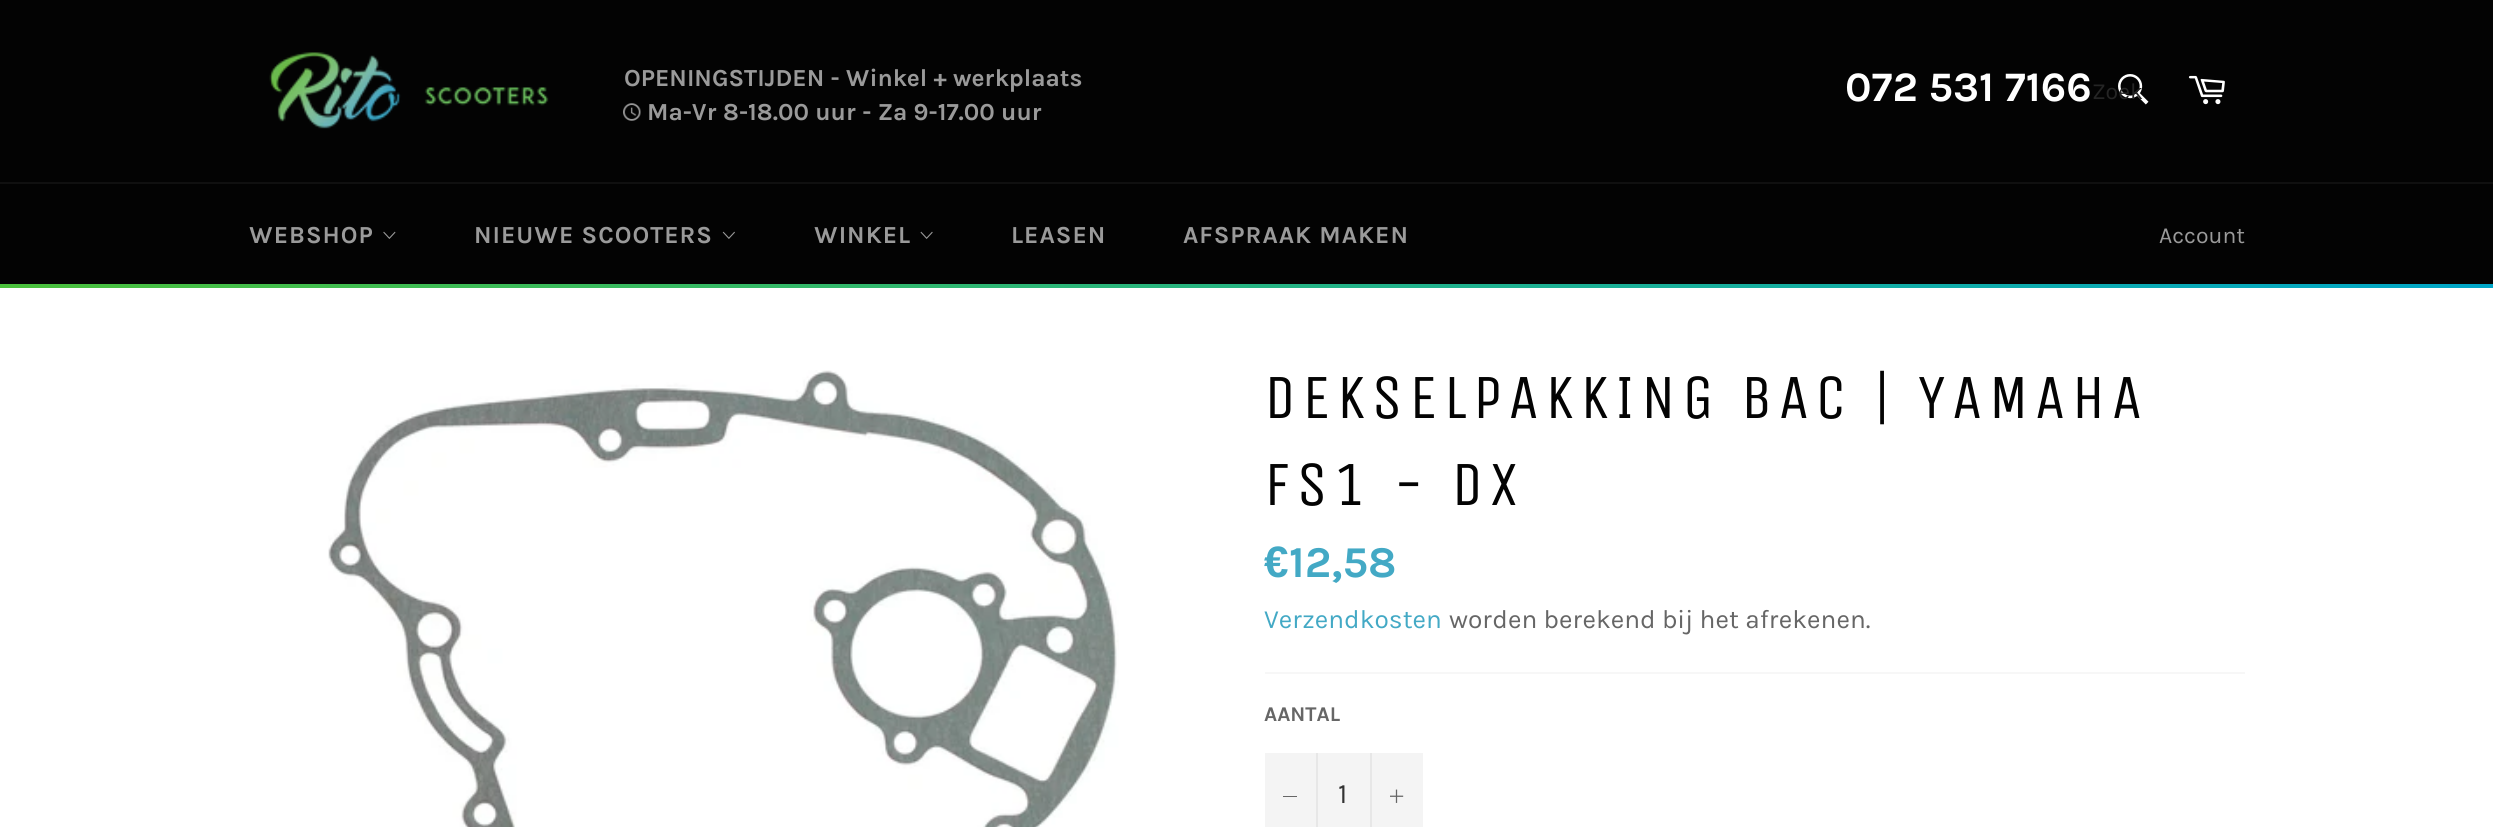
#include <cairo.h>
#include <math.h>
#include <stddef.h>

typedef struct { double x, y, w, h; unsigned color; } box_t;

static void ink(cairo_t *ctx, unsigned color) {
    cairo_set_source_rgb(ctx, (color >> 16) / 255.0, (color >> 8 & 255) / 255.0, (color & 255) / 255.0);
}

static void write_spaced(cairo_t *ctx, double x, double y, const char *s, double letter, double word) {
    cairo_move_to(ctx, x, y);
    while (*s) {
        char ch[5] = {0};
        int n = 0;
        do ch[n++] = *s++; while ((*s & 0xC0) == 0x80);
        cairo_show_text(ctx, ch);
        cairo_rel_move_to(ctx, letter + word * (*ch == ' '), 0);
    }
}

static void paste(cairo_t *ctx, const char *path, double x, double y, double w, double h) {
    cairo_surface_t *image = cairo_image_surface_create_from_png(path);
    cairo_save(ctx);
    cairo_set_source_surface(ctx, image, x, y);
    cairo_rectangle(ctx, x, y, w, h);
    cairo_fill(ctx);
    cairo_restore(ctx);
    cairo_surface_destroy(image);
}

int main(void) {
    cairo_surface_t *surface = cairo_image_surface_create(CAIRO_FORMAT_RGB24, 2493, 827);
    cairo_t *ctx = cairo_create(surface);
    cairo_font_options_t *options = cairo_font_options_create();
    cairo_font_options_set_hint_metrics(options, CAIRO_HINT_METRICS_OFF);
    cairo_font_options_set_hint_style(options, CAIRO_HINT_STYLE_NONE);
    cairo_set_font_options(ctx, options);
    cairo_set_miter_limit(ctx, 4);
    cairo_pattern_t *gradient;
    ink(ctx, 0x030303);
    cairo_paint(ctx);
    paste(ctx, "media/1.png", 269, 52, 280, 77);
    cairo_select_font_face(ctx, "Karla", CAIRO_FONT_SLANT_NORMAL, CAIRO_FONT_WEIGHT_BOLD);
    cairo_set_font_size(ctx, 24.5);
    ink(ctx, 0x9A9A9A);
    cairo_move_to(ctx, 624, 86);
    cairo_show_text(ctx, "OPENINGSTIJDEN - Winkel + werkplaats");
    paste(ctx, "media/2.png", 623, 103, 18, 18);
    cairo_move_to(ctx, 647, 120);
    cairo_show_text(ctx, "Ma-Vr 8-18.00 uur - Za 9-17.00 uur");
    cairo_set_font_size(ctx, 42);
    ink(ctx, 0xFFFFFF);
    cairo_move_to(ctx, 1845, 101);
    cairo_show_text(ctx, "072 531 7166");
    paste(ctx, "media/3.png", 2118, 74, 31, 31);
    cairo_select_font_face(ctx, "Karla", CAIRO_FONT_SLANT_NORMAL, CAIRO_FONT_WEIGHT_NORMAL);
    cairo_set_font_size(ctx, 23);
    ink(ctx, 0x252525);
    cairo_move_to(ctx, 2092, 99);
    cairo_show_text(ctx, "Zoek");
    paste(ctx, "media/4.png", 2188, 75, 37, 30);
    ink(ctx, 0x101010);
    cairo_rectangle(ctx, 0, 182, 2493, 2);
    cairo_fill(ctx);
    cairo_select_font_face(ctx, "Karla", CAIRO_FONT_SLANT_NORMAL, CAIRO_FONT_WEIGHT_BOLD);
    cairo_set_font_size(ctx, 24.5);
    ink(ctx, 0x9A9A9A);
    write_spaced(ctx, 249, 243, "WEBSHOP", 1, 0);
    paste(ctx, "media/5.png", 383, 231, 13, 8);
    write_spaced(ctx, 474, 243, "NIEUWE SCOOTERS", 1, 0);
    paste(ctx, "media/6.png", 722, 231, 13, 8);
    write_spaced(ctx, 814, 243, "WINKEL", 1, 0);
    paste(ctx, "media/7.png", 920, 231, 13, 8);
    write_spaced(ctx, 1011, 243, "LEASEN", 1, 0);
    write_spaced(ctx, 1183, 243, "AFSPRAAK MAKEN", 1, 0);
    cairo_select_font_face(ctx, "Karla", CAIRO_FONT_SLANT_NORMAL, CAIRO_FONT_WEIGHT_NORMAL);
    cairo_set_font_size(ctx, 23);
    cairo_move_to(ctx, 2159, 243);
    cairo_show_text(ctx, "Account");
    gradient = cairo_pattern_create_linear(0, 285, 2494, 285);
    cairo_pattern_add_color_stop_rgba(gradient, 0, 0.294, 0.757, 0.235, 1);
    cairo_pattern_add_color_stop_rgba(gradient, 1, 0, 0.651, 0.784, 1);
    cairo_set_source(ctx, gradient);
    cairo_pattern_destroy(gradient);
    cairo_rectangle(ctx, 0, 284, 2493, 4);
    cairo_fill(ctx);
    ink(ctx, 0xFFFFFF);
    cairo_rectangle(ctx, 0, 288, 2493, 539);
    cairo_fill(ctx);
    paste(ctx, "media/8.png", 328, 370, 791, 457);
    cairo_select_font_face(ctx, "Unica One", CAIRO_FONT_SLANT_NORMAL, CAIRO_FONT_WEIGHT_NORMAL);
    cairo_set_font_size(ctx, 63);
    ink(ctx, 0x030303);
    write_spaced(ctx, 1264, 418, "DEKSELPAKKING BAC | YAMAHA", 6.3, 0);
    write_spaced(ctx, 1264, 505, "FS1 - DX", 6.3, 0);
    cairo_select_font_face(ctx, "Liberation Sans", CAIRO_FONT_SLANT_NORMAL, CAIRO_FONT_WEIGHT_BOLD);
    cairo_set_font_size(ctx, 44);
    ink(ctx, 0x43A9C5);
    cairo_move_to(ctx, 1264, 577);
    cairo_show_text(ctx, "€");
    cairo_select_font_face(ctx, "Karla", CAIRO_FONT_SLANT_NORMAL, CAIRO_FONT_WEIGHT_BOLD);
    cairo_move_to(ctx, 1289, 577);
    cairo_show_text(ctx, "12,58");
    cairo_select_font_face(ctx, "Karla", CAIRO_FONT_SLANT_NORMAL, CAIRO_FONT_WEIGHT_NORMAL);
    cairo_set_font_size(ctx, 26.25);
    cairo_move_to(ctx, 1264, 628);
    cairo_show_text(ctx, "Verzendkosten");
    ink(ctx, 0x666666);
    cairo_move_to(ctx, 1449, 628);
    cairo_show_text(ctx, "worden berekend bij het afrekenen.");
    ink(ctx, 0xF7F7F7);
    cairo_rectangle(ctx, 1265, 672, 980, 2);
    cairo_fill(ctx);
    cairo_select_font_face(ctx, "Karla", CAIRO_FONT_SLANT_NORMAL, CAIRO_FONT_WEIGHT_BOLD);
    cairo_set_font_size(ctx, 21);
    ink(ctx, 0x666666);
    cairo_move_to(ctx, 1264, 721);
    cairo_show_text(ctx, "AANTAL");
    {
        static const box_t items[] = {
            {1265, 753, 158, 74, 0xF4F4F4},
            {1316, 753, 2, 74, 0xE7E7E7},
            {1283, 796, 14, 1, 0x666666},
        };
        for (size_t i = 0; i < sizeof items / sizeof *items; i++) {
            ink(ctx, items[i].color);
            cairo_rectangle(ctx, items[i].x, items[i].y, items[i].w, items[i].h);
            cairo_fill(ctx);
        }
    }
    cairo_select_font_face(ctx, "Karla", CAIRO_FONT_SLANT_NORMAL, CAIRO_FONT_WEIGHT_NORMAL);
    cairo_set_font_size(ctx, 28);
    ink(ctx, 0x333333);
    cairo_move_to(ctx, 1338, 803);
    cairo_show_text(ctx, "1");
    ink(ctx, 0xE7E7E7);
    cairo_rectangle(ctx, 1370, 753, 2, 74);
    cairo_fill(ctx);
    paste(ctx, "media/9.png", 1390, 789, 14, 14);
    cairo_surface_write_to_png(surface, "image.png");
    cairo_font_options_destroy(options);
    cairo_destroy(ctx);
    cairo_surface_destroy(surface);
    return 0;
}
